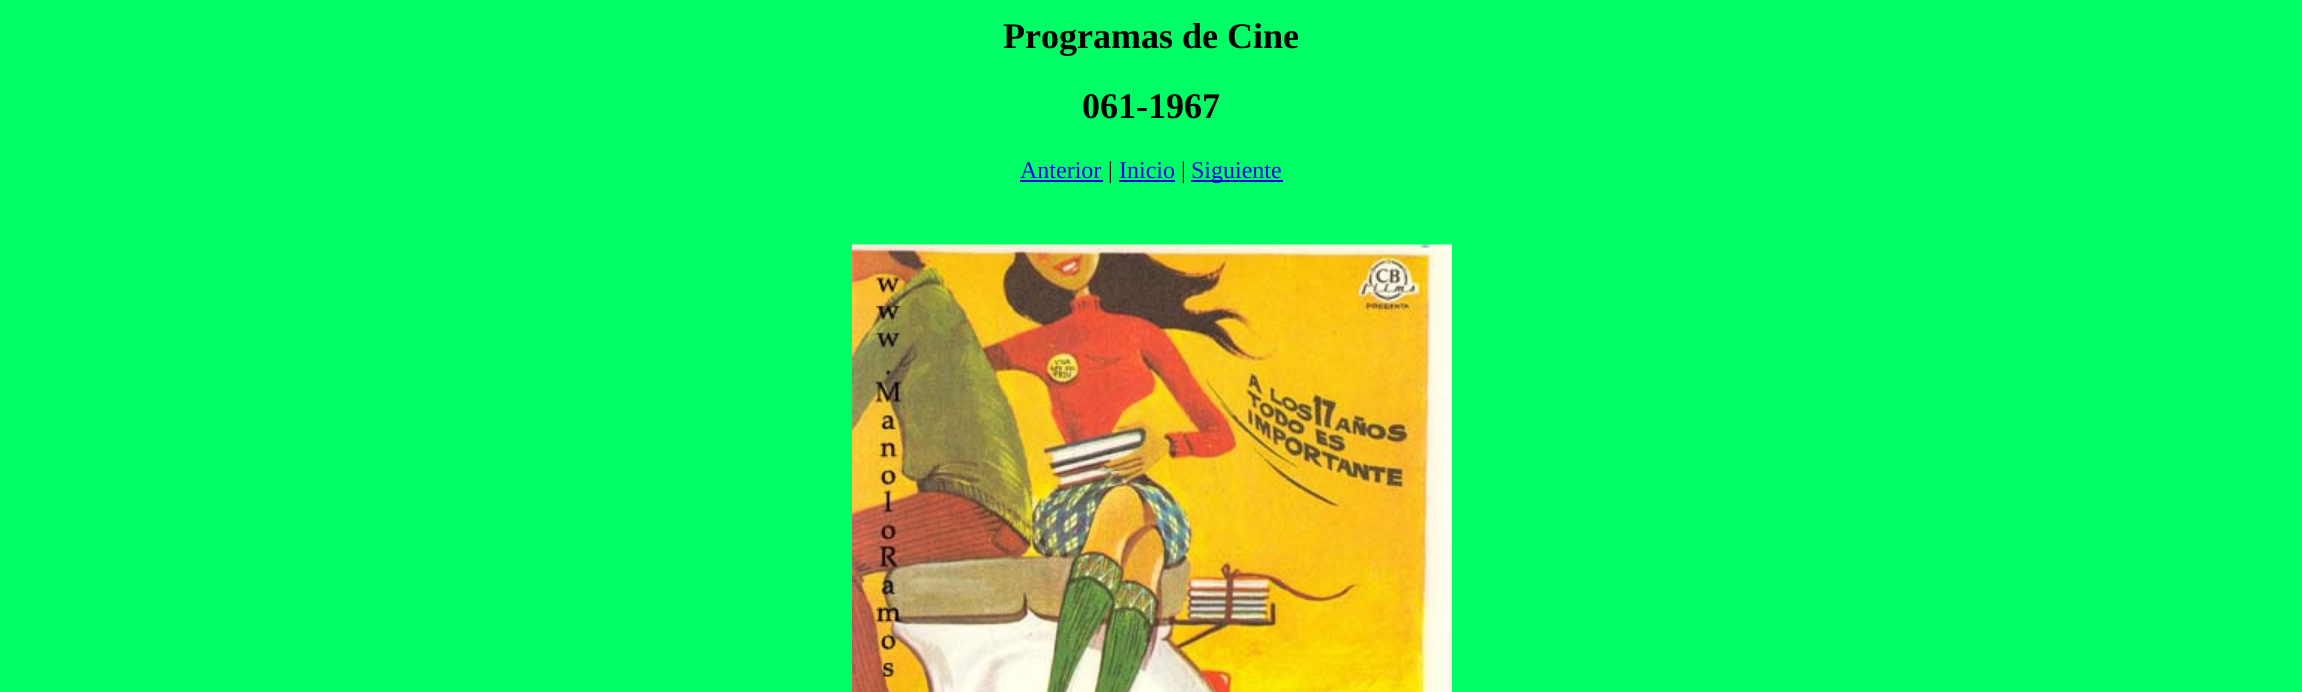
#include <cairo.h>
#include <math.h>
#include <stddef.h>


static void ink(cairo_t *ctx, unsigned color) {
    cairo_set_source_rgb(ctx, (color >> 16) / 255.0, (color >> 8 & 255) / 255.0, (color & 255) / 255.0);
}

static void paste(cairo_t *ctx, const char *path, double x, double y, double w, double h) {
    cairo_surface_t *image = cairo_image_surface_create_from_png(path);
    cairo_save(ctx);
    cairo_set_source_surface(ctx, image, x, y);
    cairo_rectangle(ctx, x, y, w, h);
    cairo_fill(ctx);
    cairo_restore(ctx);
    cairo_surface_destroy(image);
}

int main(void) {
    cairo_surface_t *surface = cairo_image_surface_create(CAIRO_FORMAT_RGB24, 2302, 692);
    cairo_t *ctx = cairo_create(surface);
    cairo_font_options_t *options = cairo_font_options_create();
    cairo_font_options_set_hint_metrics(options, CAIRO_HINT_METRICS_OFF);
    cairo_font_options_set_hint_style(options, CAIRO_HINT_STYLE_NONE);
    cairo_set_font_options(ctx, options);
    cairo_set_miter_limit(ctx, 4);
    ink(ctx, 0x00FF66);
    cairo_paint(ctx);
    cairo_select_font_face(ctx, "Liberation Serif", CAIRO_FONT_SLANT_NORMAL, CAIRO_FONT_WEIGHT_BOLD);
    cairo_set_font_size(ctx, 36);
    ink(ctx, 0x000000);
    cairo_move_to(ctx, 1003, 48);
    cairo_show_text(ctx, "Programas de Cine");
    cairo_move_to(ctx, 1082, 118);
    cairo_show_text(ctx, "061-1967");
    cairo_select_font_face(ctx, "Liberation Serif", CAIRO_FONT_SLANT_NORMAL, CAIRO_FONT_WEIGHT_NORMAL);
    cairo_set_font_size(ctx, 24);
    ink(ctx, 0x0000EE);
    cairo_move_to(ctx, 1020, 178);
    cairo_show_text(ctx, "Anterior");
    cairo_rectangle(ctx, 1020, 180, 83, 2);
    cairo_fill(ctx);
    ink(ctx, 0x000000);
    cairo_move_to(ctx, 1108, 178);
    cairo_show_text(ctx, "|");
    ink(ctx, 0x0000EE);
    cairo_move_to(ctx, 1119, 178);
    cairo_show_text(ctx, "Inicio");
    cairo_rectangle(ctx, 1119, 180, 56, 2);
    cairo_fill(ctx);
    ink(ctx, 0x000000);
    cairo_move_to(ctx, 1181, 178);
    cairo_show_text(ctx, "|");
    ink(ctx, 0x0000EE);
    cairo_rectangle(ctx, 1191, 180, 92, 2);
    cairo_fill(ctx);
    cairo_move_to(ctx, 1191, 178);
    cairo_show_text(ctx, "Siguiente");
    paste(ctx, "media/1.png", 852, 244, 600, 448);
    cairo_surface_write_to_png(surface, "image.png");
    cairo_font_options_destroy(options);
    cairo_destroy(ctx);
    cairo_surface_destroy(surface);
    return 0;
}
